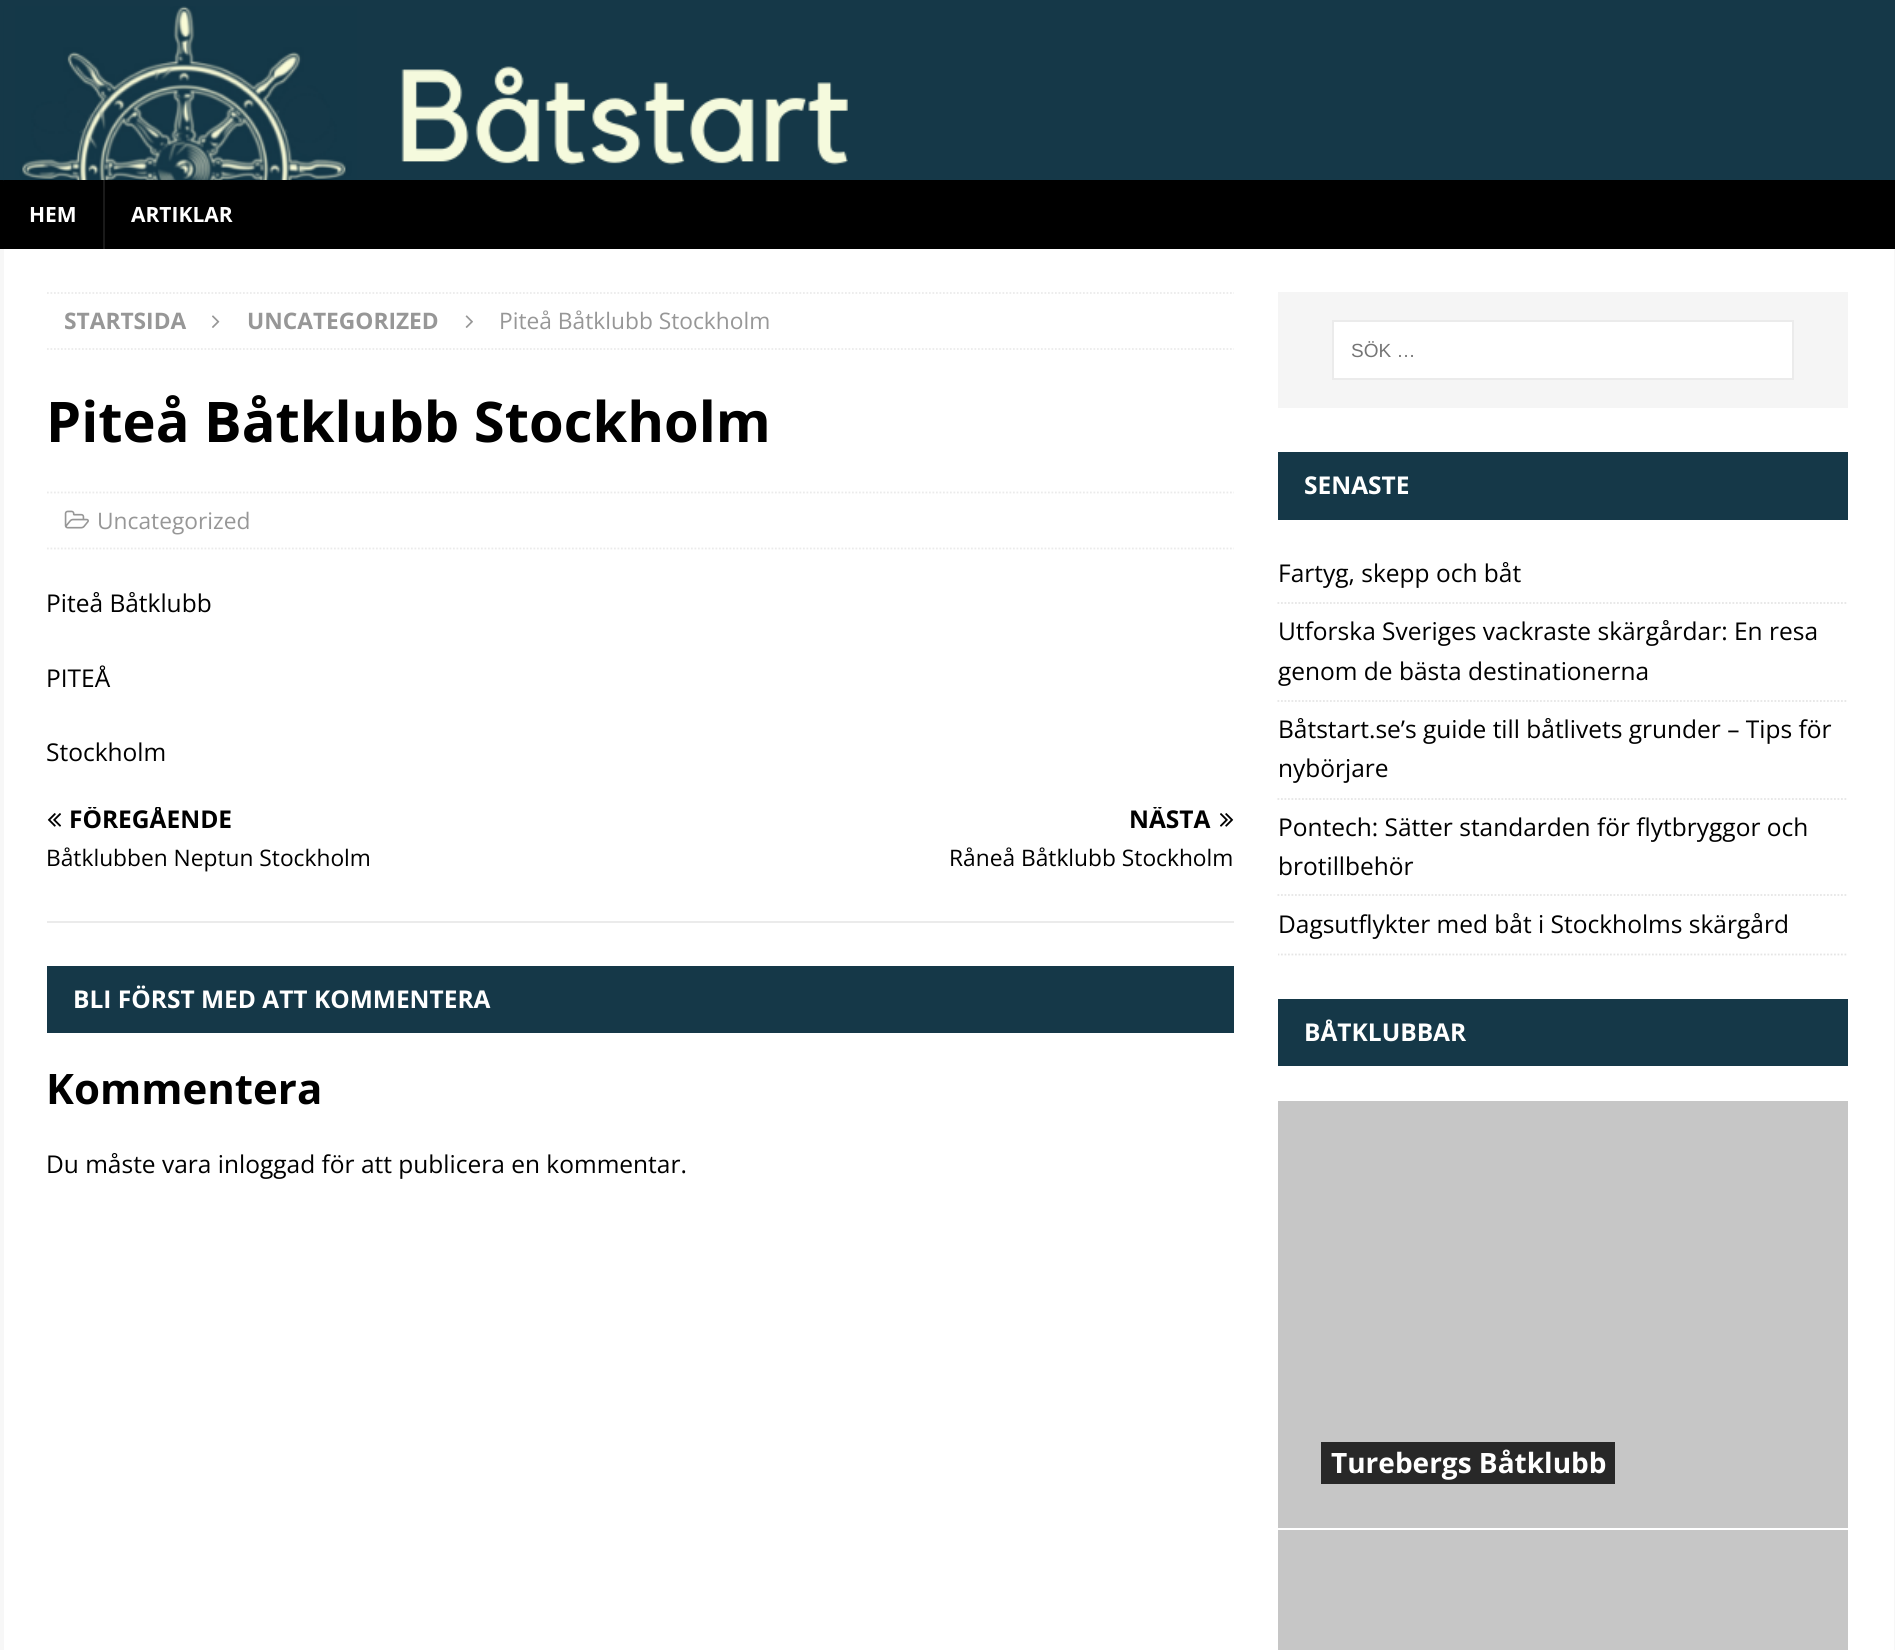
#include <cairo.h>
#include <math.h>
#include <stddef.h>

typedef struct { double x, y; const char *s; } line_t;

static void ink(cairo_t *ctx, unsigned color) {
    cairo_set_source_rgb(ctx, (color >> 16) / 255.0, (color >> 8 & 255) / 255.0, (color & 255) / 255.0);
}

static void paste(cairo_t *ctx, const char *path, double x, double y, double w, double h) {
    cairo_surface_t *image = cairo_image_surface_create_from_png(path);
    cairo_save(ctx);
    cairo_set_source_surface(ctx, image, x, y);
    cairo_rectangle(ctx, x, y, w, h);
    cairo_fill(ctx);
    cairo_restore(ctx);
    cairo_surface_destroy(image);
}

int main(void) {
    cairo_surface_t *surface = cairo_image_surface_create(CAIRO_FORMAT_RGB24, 1895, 1650);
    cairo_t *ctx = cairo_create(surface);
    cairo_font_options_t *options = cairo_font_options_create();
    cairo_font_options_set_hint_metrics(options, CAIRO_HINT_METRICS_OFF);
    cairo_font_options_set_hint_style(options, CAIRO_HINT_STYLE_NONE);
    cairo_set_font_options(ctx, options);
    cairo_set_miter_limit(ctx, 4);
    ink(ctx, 0xF7F7F7);
    cairo_paint(ctx);
    ink(ctx, 0x153848);
    cairo_rectangle(ctx, 0, 0, 1895, 180);
    cairo_fill(ctx);
    ink(ctx, 0x000000);
    cairo_rectangle(ctx, 0, 180, 1895, 69);
    cairo_fill(ctx);
    paste(ctx, "media/1.png", 3, 6, 1891, 175);
    cairo_rectangle(ctx, 4, 180, 1890, 1);
    cairo_fill(ctx);
    cairo_select_font_face(ctx, "Open Sans", CAIRO_FONT_SLANT_NORMAL, CAIRO_FONT_WEIGHT_BOLD);
    cairo_set_font_size(ctx, 21);
    ink(ctx, 0xFFFFFF);
    cairo_move_to(ctx, 29, 222);
    cairo_show_text(ctx, "HEM");
    ink(ctx, 0x1A1A1A);
    cairo_rectangle(ctx, 103, 180, 2, 69);
    cairo_fill(ctx);
    ink(ctx, 0xFFFFFF);
    cairo_move_to(ctx, 131, 222);
    cairo_show_text(ctx, "ARTIKLAR");
    cairo_rectangle(ctx, 4, 249, 1890, 1401);
    cairo_fill(ctx);
    cairo_new_path(ctx);
    cairo_move_to(ctx, 47, 293);
    cairo_line_to(ctx, 1234, 293);
    ink(ctx, 0xEBEBEB);
    cairo_set_line_width(ctx, 1.8);
    cairo_set_dash(ctx, (double[]){1.75, 1.75}, 2, 0);
    cairo_stroke(ctx);
    cairo_new_path(ctx);
    cairo_move_to(ctx, 47, 349);
    cairo_line_to(ctx, 1234, 349);
    cairo_stroke(ctx);
    cairo_set_font_size(ctx, 22.75);
    ink(ctx, 0x979797);
    cairo_move_to(ctx, 64, 329);
    cairo_show_text(ctx, "STARTSIDA");
    paste(ctx, "media/2.png", 212, 315, 8, 13);
    cairo_move_to(ctx, 247, 329);
    cairo_show_text(ctx, "UNCATEGORIZED");
    paste(ctx, "media/3.png", 465, 315, 8, 13);
    cairo_select_font_face(ctx, "Open Sans", CAIRO_FONT_SLANT_NORMAL, CAIRO_FONT_WEIGHT_NORMAL);
    cairo_move_to(ctx, 499, 329);
    cairo_show_text(ctx, "Piteå Båtklubb Stockholm");
    cairo_select_font_face(ctx, "Open Sans", CAIRO_FONT_SLANT_NORMAL, CAIRO_FONT_WEIGHT_BOLD);
    cairo_set_font_size(ctx, 56);
    ink(ctx, 0x000000);
    cairo_move_to(ctx, 46, 442);
    cairo_show_text(ctx, "Piteå Båtklubb Stockholm");
    cairo_new_path(ctx);
    cairo_move_to(ctx, 47, 492.5);
    cairo_line_to(ctx, 1234, 492.5);
    ink(ctx, 0xEBEBEB);
    cairo_stroke(ctx);
    cairo_new_path(ctx);
    cairo_move_to(ctx, 47, 548.5);
    cairo_line_to(ctx, 1234, 548.5);
    cairo_stroke(ctx);
    paste(ctx, "media/4.png", 64, 510, 25, 19);
    cairo_select_font_face(ctx, "Open Sans", CAIRO_FONT_SLANT_NORMAL, CAIRO_FONT_WEIGHT_NORMAL);
    cairo_set_font_size(ctx, 22.75);
    ink(ctx, 0x979797);
    cairo_move_to(ctx, 97, 529);
    cairo_show_text(ctx, "Uncategorized");
    cairo_set_font_size(ctx, 24.5);
    ink(ctx, 0x000000);
    {
        static const line_t items[] = {
            {46, 612, "Piteå Båtklubb"},
            {46, 687, "PITEÅ"},
            {46, 761, "Stockholm"},
        };
        for (size_t i = 0; i < sizeof items / sizeof *items; i++) {
            cairo_move_to(ctx, items[i].x, items[i].y);
            cairo_show_text(ctx, items[i].s);
        }
    }
    ink(ctx, 0xEBEBEB);
    cairo_rectangle(ctx, 47, 921, 1187, 2);
    cairo_fill(ctx);
    paste(ctx, "media/5.png", 47, 813, 14, 14);
    cairo_save(ctx);
    cairo_rectangle(ctx, 47, 807, 578, 24);
    cairo_clip(ctx);
    cairo_select_font_face(ctx, "Open Sans", CAIRO_FONT_SLANT_NORMAL, CAIRO_FONT_WEIGHT_BOLD);
    ink(ctx, 0x000000);
    cairo_move_to(ctx, 69, 828);
    cairo_show_text(ctx, "FÖREGÅENDE");
    cairo_restore(ctx);
    cairo_set_font_size(ctx, 22.75);
    ink(ctx, 0x000000);
    cairo_move_to(ctx, 46, 866);
    cairo_show_text(ctx, "Båtklubben Neptun Stockholm");
    cairo_save(ctx);
    cairo_rectangle(ctx, 655, 807, 579, 24);
    cairo_clip(ctx);
    cairo_select_font_face(ctx, "Open Sans", CAIRO_FONT_SLANT_NORMAL, CAIRO_FONT_WEIGHT_BOLD);
    cairo_set_font_size(ctx, 24.5);
    cairo_move_to(ctx, 1129, 828);
    cairo_show_text(ctx, "NÄSTA");
    cairo_restore(ctx);
    paste(ctx, "media/6.png", 1220, 813, 14, 14);
    cairo_move_to(ctx, 949, 866);
    cairo_show_text(ctx, "Råneå Båtklubb Stockholm");
    ink(ctx, 0x153848);
    cairo_rectangle(ctx, 47, 966, 1187, 67);
    cairo_fill(ctx);
    cairo_select_font_face(ctx, "Open Sans", CAIRO_FONT_SLANT_NORMAL, CAIRO_FONT_WEIGHT_BOLD);
    cairo_set_font_size(ctx, 24.5);
    ink(ctx, 0xFFFFFF);
    cairo_move_to(ctx, 73, 1008);
    cairo_show_text(ctx, "BLI FÖRST MED ATT KOMMENTERA");
    cairo_set_font_size(ctx, 42);
    ink(ctx, 0x000000);
    cairo_move_to(ctx, 46, 1104);
    cairo_show_text(ctx, "Kommentera");
    cairo_select_font_face(ctx, "Open Sans", CAIRO_FONT_SLANT_NORMAL, CAIRO_FONT_WEIGHT_NORMAL);
    cairo_set_font_size(ctx, 24.5);
    cairo_move_to(ctx, 46, 1173);
    cairo_show_text(ctx, "Du måste vara inloggad för att publicera en kommentar.");
    ink(ctx, 0xF5F5F5);
    cairo_rectangle(ctx, 1278, 292, 570, 116);
    cairo_fill(ctx);
    ink(ctx, 0xFFFFFF);
    cairo_rectangle(ctx, 1333, 321, 460, 58);
    cairo_fill_preserve(ctx);
    ink(ctx, 0xEBEBEB);
    cairo_set_line_width(ctx, 2);
    cairo_set_dash(ctx, NULL, 0, 0);
    cairo_stroke(ctx);
    cairo_select_font_face(ctx, "Liberation Sans", CAIRO_FONT_SLANT_NORMAL, CAIRO_FONT_WEIGHT_NORMAL);
    cairo_set_font_size(ctx, 19);
    ink(ctx, 0x757575);
    cairo_move_to(ctx, 1351, 357);
    cairo_show_text(ctx, "SÖK …");
    ink(ctx, 0x153848);
    cairo_rectangle(ctx, 1278, 452, 570, 68);
    cairo_fill(ctx);
    cairo_select_font_face(ctx, "Open Sans", CAIRO_FONT_SLANT_NORMAL, CAIRO_FONT_WEIGHT_BOLD);
    cairo_set_font_size(ctx, 24.5);
    ink(ctx, 0xFFFFFF);
    cairo_move_to(ctx, 1304, 494);
    cairo_show_text(ctx, "SENASTE");
    cairo_new_path(ctx);
    cairo_move_to(ctx, 1277.5, 603);
    cairo_line_to(ctx, 1848, 603);
    ink(ctx, 0xE5E5E5);
    cairo_set_line_width(ctx, 1.8);
    cairo_set_dash(ctx, (double[]){1.75, 1.75}, 2, 0);
    cairo_stroke(ctx);
    cairo_select_font_face(ctx, "Open Sans", CAIRO_FONT_SLANT_NORMAL, CAIRO_FONT_WEIGHT_NORMAL);
    ink(ctx, 0x000000);
    cairo_move_to(ctx, 1278, 582);
    cairo_show_text(ctx, "Fartyg, skepp och båt");
    cairo_new_path(ctx);
    cairo_move_to(ctx, 1277.5, 701);
    cairo_line_to(ctx, 1848, 701);
    ink(ctx, 0xE5E5E5);
    cairo_stroke(ctx);
    ink(ctx, 0x000000);
    cairo_move_to(ctx, 1278, 640);
    cairo_show_text(ctx, "Utforska Sveriges vackraste skärgårdar: En resa");
    cairo_move_to(ctx, 1278, 680);
    cairo_show_text(ctx, "genom de bästa destinationerna");
    cairo_new_path(ctx);
    cairo_move_to(ctx, 1277.5, 799);
    cairo_line_to(ctx, 1848, 799);
    ink(ctx, 0xE5E5E5);
    cairo_stroke(ctx);
    ink(ctx, 0x000000);
    cairo_move_to(ctx, 1278, 738);
    cairo_show_text(ctx, "Båtstart.se’s guide till båtlivets grunder – Tips för");
    cairo_move_to(ctx, 1278, 777);
    cairo_show_text(ctx, "nybörjare");
    cairo_new_path(ctx);
    cairo_move_to(ctx, 1277.5, 895);
    cairo_line_to(ctx, 1848, 895);
    ink(ctx, 0xE5E5E5);
    cairo_stroke(ctx);
    ink(ctx, 0x000000);
    cairo_move_to(ctx, 1278, 836);
    cairo_show_text(ctx, "Pontech: Sätter standarden för flytbryggor och");
    cairo_move_to(ctx, 1278, 875);
    cairo_show_text(ctx, "brotillbehör");
    cairo_save(ctx);
    cairo_rectangle(ctx, 1278, 452, 570, 504);
    cairo_clip(ctx);
    cairo_new_path(ctx);
    cairo_move_to(ctx, 1277.5, 954.5);
    cairo_line_to(ctx, 1848, 954.5);
    ink(ctx, 0xE5E5E5);
    cairo_stroke(ctx);
    cairo_restore(ctx);
    cairo_move_to(ctx, 1278, 933);
    cairo_show_text(ctx, "Dagsutflykter med båt i Stockholms skärgård");
    ink(ctx, 0x153848);
    cairo_rectangle(ctx, 1278, 999, 570, 67);
    cairo_fill(ctx);
    cairo_select_font_face(ctx, "Open Sans", CAIRO_FONT_SLANT_NORMAL, CAIRO_FONT_WEIGHT_BOLD);
    ink(ctx, 0xFFFFFF);
    cairo_move_to(ctx, 1304, 1041);
    cairo_show_text(ctx, "BÅTKLUBBAR");
    ink(ctx, 0xC6C6C6);
    cairo_rectangle(ctx, 1278, 1101, 570, 427);
    cairo_fill(ctx);
    ink(ctx, 0x282828);
    cairo_rectangle(ctx, 1321, 1442, 294, 42);
    cairo_fill(ctx);
    cairo_set_font_size(ctx, 28);
    ink(ctx, 0xFFFFFF);
    cairo_move_to(ctx, 1331, 1473);
    cairo_show_text(ctx, "Turebergs Båtklubb");
    ink(ctx, 0xC6C6C6);
    cairo_rectangle(ctx, 1278, 1530, 570, 120);
    cairo_fill(ctx);
    cairo_surface_write_to_png(surface, "image.png");
    cairo_font_options_destroy(options);
    cairo_destroy(ctx);
    cairo_surface_destroy(surface);
    return 0;
}
